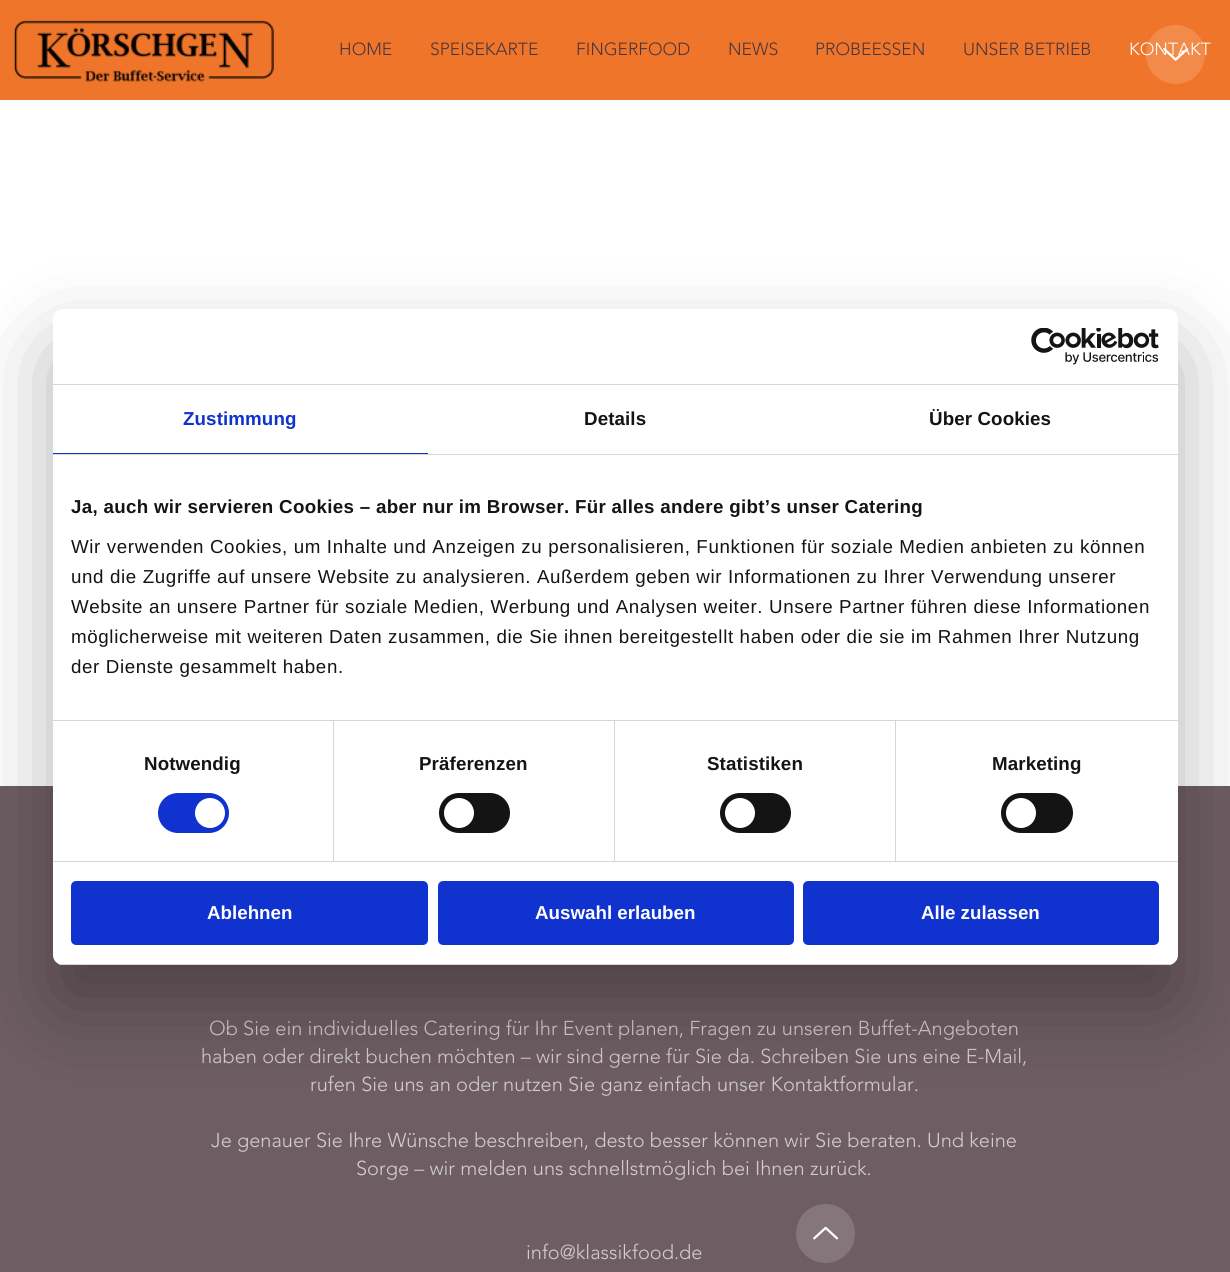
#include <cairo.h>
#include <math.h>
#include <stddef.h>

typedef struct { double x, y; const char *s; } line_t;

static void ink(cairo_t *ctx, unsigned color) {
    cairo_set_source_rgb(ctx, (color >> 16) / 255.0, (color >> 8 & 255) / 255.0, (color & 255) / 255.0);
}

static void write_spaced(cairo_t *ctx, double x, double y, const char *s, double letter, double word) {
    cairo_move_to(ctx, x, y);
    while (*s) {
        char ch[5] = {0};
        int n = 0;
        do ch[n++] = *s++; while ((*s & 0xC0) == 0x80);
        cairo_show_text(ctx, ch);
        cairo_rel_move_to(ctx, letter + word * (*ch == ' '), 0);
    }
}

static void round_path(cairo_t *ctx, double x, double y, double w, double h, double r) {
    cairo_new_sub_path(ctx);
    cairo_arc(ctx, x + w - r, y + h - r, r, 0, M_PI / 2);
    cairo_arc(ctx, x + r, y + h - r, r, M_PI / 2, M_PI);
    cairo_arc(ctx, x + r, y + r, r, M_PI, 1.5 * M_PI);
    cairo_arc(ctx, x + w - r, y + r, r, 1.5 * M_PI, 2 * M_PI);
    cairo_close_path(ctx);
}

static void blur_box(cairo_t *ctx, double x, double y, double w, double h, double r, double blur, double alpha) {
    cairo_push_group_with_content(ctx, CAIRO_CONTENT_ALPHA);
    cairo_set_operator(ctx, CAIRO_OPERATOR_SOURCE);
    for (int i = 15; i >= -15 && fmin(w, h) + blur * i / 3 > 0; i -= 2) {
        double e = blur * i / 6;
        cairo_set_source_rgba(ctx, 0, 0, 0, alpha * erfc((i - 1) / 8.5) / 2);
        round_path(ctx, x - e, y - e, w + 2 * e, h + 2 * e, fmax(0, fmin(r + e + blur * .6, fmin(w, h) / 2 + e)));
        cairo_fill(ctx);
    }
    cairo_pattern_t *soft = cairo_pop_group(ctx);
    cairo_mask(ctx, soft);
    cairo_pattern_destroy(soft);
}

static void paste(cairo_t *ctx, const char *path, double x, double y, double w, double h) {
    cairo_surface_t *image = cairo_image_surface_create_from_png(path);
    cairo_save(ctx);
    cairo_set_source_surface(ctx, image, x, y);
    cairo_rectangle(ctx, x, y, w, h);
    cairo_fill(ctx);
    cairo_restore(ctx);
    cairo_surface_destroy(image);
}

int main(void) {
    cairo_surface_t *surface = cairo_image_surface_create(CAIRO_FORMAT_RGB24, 1230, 1272);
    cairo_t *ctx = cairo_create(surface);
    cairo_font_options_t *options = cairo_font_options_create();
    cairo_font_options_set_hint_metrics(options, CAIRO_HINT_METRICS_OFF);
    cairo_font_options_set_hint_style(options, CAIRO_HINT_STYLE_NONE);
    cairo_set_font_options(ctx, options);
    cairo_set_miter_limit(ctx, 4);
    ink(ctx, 0xFFFFFF);
    cairo_paint(ctx);
    ink(ctx, 0xEF752A);
    cairo_rectangle(ctx, 0, 0, 1230, 100);
    cairo_fill(ctx);
    cairo_select_font_face(ctx, "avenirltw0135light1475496 Light", CAIRO_FONT_SLANT_NORMAL, CAIRO_FONT_WEIGHT_NORMAL);
    cairo_set_font_size(ctx, 17.5);
    ink(ctx, 0xFFFFFF);
    cairo_move_to(ctx, 1129, 55);
    cairo_show_text(ctx, "KONTAKT");
    cairo_set_source_rgba(ctx, 0.996, 0.984, 0.965, 0.16);
    cairo_new_path(ctx);
    cairo_move_to(ctx, 1176, 84);
    cairo_curve_to(ctx, 1159, 84, 1146, 71, 1146, 54);
    cairo_curve_to(ctx, 1146, 38, 1159, 25, 1176, 25);
    cairo_curve_to(ctx, 1192, 25, 1205, 38, 1205, 54);
    cairo_curve_to(ctx, 1205, 71, 1192, 84, 1176, 84);
    cairo_close_path(ctx);
    cairo_fill(ctx);
    paste(ctx, "media/1.png", 1163, 48, 26, 13);
    paste(ctx, "media/2.png", 13, 20, 261, 62);
    ink(ctx, 0x4A363D);
    {
        static const line_t items[] = {
            {339, 55, "HOME"},
            {430, 55, "SPEISEKARTE"},
            {576, 55, "FINGERFOOD"},
            {728, 55, "NEWS"},
            {815, 55, "PROBEESSEN"},
            {963, 55, "UNSER BETRIEB"},
        };
        for (size_t i = 0; i < sizeof items / sizeof *items; i++) {
            cairo_move_to(ctx, items[i].x, items[i].y);
            cairo_show_text(ctx, items[i].s);
        }
    }
    ink(ctx, 0x6E5E64);
    cairo_rectangle(ctx, 0, 786, 1230, 486);
    cairo_fill(ctx);
    cairo_set_font_size(ctx, 20);
    ink(ctx, 0xD2CDCF);
    {
        static const line_t items[] = {
            {209, 1035, "Ob Sie ein individuelles Catering für Ihr Event planen, Fragen zu unseren Buffet-Angeboten"},
            {201, 1063, "haben oder direkt buchen möchten – wir sind gerne für Sie da. Schreiben Sie uns eine E-Mail,"},
            {310, 1091, "rufen Sie uns an oder nutzen Sie ganz einfach unser Kontaktformular."},
            {211, 1147, "Je genauer Sie Ihre Wünsche beschreiben, desto besser können wir Sie beraten. Und keine"},
            {356, 1175, "Sorge – wir melden uns schnellstmöglich bei Ihnen zurück."},
            {526, 1259, "info@klassikfood.de"},
        };
        for (size_t i = 0; i < sizeof items / sizeof *items; i++) {
            cairo_move_to(ctx, items[i].x, items[i].y);
            cairo_show_text(ctx, items[i].s);
        }
    }
    ink(ctx, 0x84767A);
    cairo_new_path(ctx);
    cairo_arc(ctx, 825.5, 1233.5, 29.5, 0, 2 * M_PI);
    cairo_fill(ctx);
    paste(ctx, "media/3.png", 813, 1226, 26, 14);
    ink(ctx, 0x000000);
    blur_box(ctx, 53, 349, 1125, 656, 10, 42.5, 0.3);
    ink(ctx, 0xFFFFFF);
    round_path(ctx, 53, 309, 1125, 656, 10);
    cairo_fill(ctx);
    ink(ctx, 0xD6D6D6);
    cairo_rectangle(ctx, 53, 384, 1125, 1);
    cairo_fill(ctx);
    paste(ctx, "media/4.png", 1031, 328, 128, 37);
    cairo_rectangle(ctx, 53, 454, 1125, 1);
    cairo_fill(ctx);
    ink(ctx, 0x1032CF);
    cairo_rectangle(ctx, 53, 453, 375, 1);
    cairo_fill(ctx);
    cairo_select_font_face(ctx, "Liberation Sans", CAIRO_FONT_SLANT_NORMAL, CAIRO_FONT_WEIGHT_BOLD);
    cairo_set_font_size(ctx, 18.75);
    write_spaced(ctx, 183, 425, "Zustimmung", 0.1, 0);
    ink(ctx, 0x141414);
    write_spaced(ctx, 584, 425, "Details", 0.1, 0);
    write_spaced(ctx, 929, 425, "Über Cookies", 0.1, 0);
    ink(ctx, 0xD6D6D6);
    cairo_rectangle(ctx, 53, 720, 1125, 1);
    cairo_fill(ctx);
    ink(ctx, 0x141414);
    write_spaced(ctx, 71, 513, "Ja, auch wir servieren Cookies – aber nur im Browser. Für alles andere gibt’s unser Catering", 0.3, 0);
    cairo_select_font_face(ctx, "Liberation Sans", CAIRO_FONT_SLANT_NORMAL, CAIRO_FONT_WEIGHT_NORMAL);
    {
        static const line_t items[] = {
            {71, 553, "Wir verwenden Cookies, um Inhalte und Anzeigen zu personalisieren, Funktionen für soziale Medien anbieten zu können"},
            {71, 583, "und die Zugriffe auf unsere Website zu analysieren. Außerdem geben wir Informationen zu Ihrer Verwendung unserer"},
            {71, 613, "Website an unsere Partner für soziale Medien, Werbung und Analysen weiter. Unsere Partner führen diese Informationen"},
            {71, 643, "möglicherweise mit weiteren Daten zusammen, die Sie ihnen bereitgestellt haben oder die sie im Rahmen Ihrer Nutzung"},
            {71, 673, "der Dienste gesammelt haben."},
        };
        for (size_t i = 0; i < sizeof items / sizeof *items; i++) {
            write_spaced(ctx, items[i].x, items[i].y, items[i].s, 0.62, 0);
        }
    }
    ink(ctx, 0xD6D6D6);
    cairo_rectangle(ctx, 53, 861, 1125, 1);
    cairo_fill(ctx);
    cairo_rectangle(ctx, 333, 721, 1, 140);
    cairo_fill(ctx);
    cairo_select_font_face(ctx, "Liberation Sans", CAIRO_FONT_SLANT_NORMAL, CAIRO_FONT_WEIGHT_BOLD);
    ink(ctx, 0x141414);
    write_spaced(ctx, 144, 770, "Notwendig", 0.1, 0);
    ink(ctx, 0x1032CF);
    round_path(ctx, 158, 793, 71, 40, 20);
    cairo_fill(ctx);
    ink(ctx, 0xFFFFFF);
    cairo_arc(ctx, 210, 813, 15, 0, 2 * M_PI);
    cairo_fill(ctx);
    ink(ctx, 0xD6D6D6);
    cairo_rectangle(ctx, 614, 721, 1, 140);
    cairo_fill(ctx);
    ink(ctx, 0x141414);
    write_spaced(ctx, 419, 770, "Präferenzen", 0.1, 0);
    round_path(ctx, 439, 793, 71, 40, 20);
    cairo_fill(ctx);
    ink(ctx, 0xFFFFFF);
    cairo_arc(ctx, 459, 813, 15, 0, 2 * M_PI);
    cairo_fill(ctx);
    ink(ctx, 0xD6D6D6);
    cairo_rectangle(ctx, 895, 721, 1, 140);
    cairo_fill(ctx);
    ink(ctx, 0x141414);
    write_spaced(ctx, 707, 770, "Statistiken", 0.1, 0);
    round_path(ctx, 720, 793, 71, 40, 20);
    cairo_fill(ctx);
    ink(ctx, 0xFFFFFF);
    cairo_arc(ctx, 740, 813, 15, 0, 2 * M_PI);
    cairo_fill(ctx);
    ink(ctx, 0x141414);
    write_spaced(ctx, 992, 770, "Marketing", 0.1, 0);
    round_path(ctx, 1001, 793, 72, 40, 20);
    cairo_fill(ctx);
    ink(ctx, 0xFFFFFF);
    cairo_arc(ctx, 1021, 813, 15, 0, 2 * M_PI);
    cairo_fill(ctx);
    cairo_save(ctx);
    round_path(ctx, 53, 309, 1125, 656, 10);
    cairo_clip(ctx);
    ink(ctx, 0xD6D6D6);
    cairo_rectangle(ctx, 53, 964, 1125, 1);
    cairo_fill(ctx);
    cairo_restore(ctx);
    ink(ctx, 0x1032CF);
    round_path(ctx, 72.5, 882.5, 354, 61, 3.5);
    cairo_fill_preserve(ctx);
    cairo_set_line_width(ctx, 3);
    cairo_stroke(ctx);
    ink(ctx, 0xFFFFFF);
    cairo_move_to(ctx, 207, 919);
    cairo_show_text(ctx, "Ablehnen");
    ink(ctx, 0x1032CF);
    round_path(ctx, 439.5, 882.5, 353, 61, 3.5);
    cairo_fill_preserve(ctx);
    cairo_stroke(ctx);
    ink(ctx, 0xFFFFFF);
    cairo_move_to(ctx, 535, 919);
    cairo_show_text(ctx, "Auswahl erlauben");
    ink(ctx, 0x1032CF);
    round_path(ctx, 804.5, 882.5, 353, 61, 3.5);
    cairo_fill_preserve(ctx);
    cairo_stroke(ctx);
    ink(ctx, 0xFFFFFF);
    cairo_move_to(ctx, 921, 919);
    cairo_show_text(ctx, "Alle zulassen");
    cairo_surface_write_to_png(surface, "image.png");
    cairo_font_options_destroy(options);
    cairo_destroy(ctx);
    cairo_surface_destroy(surface);
    return 0;
}
